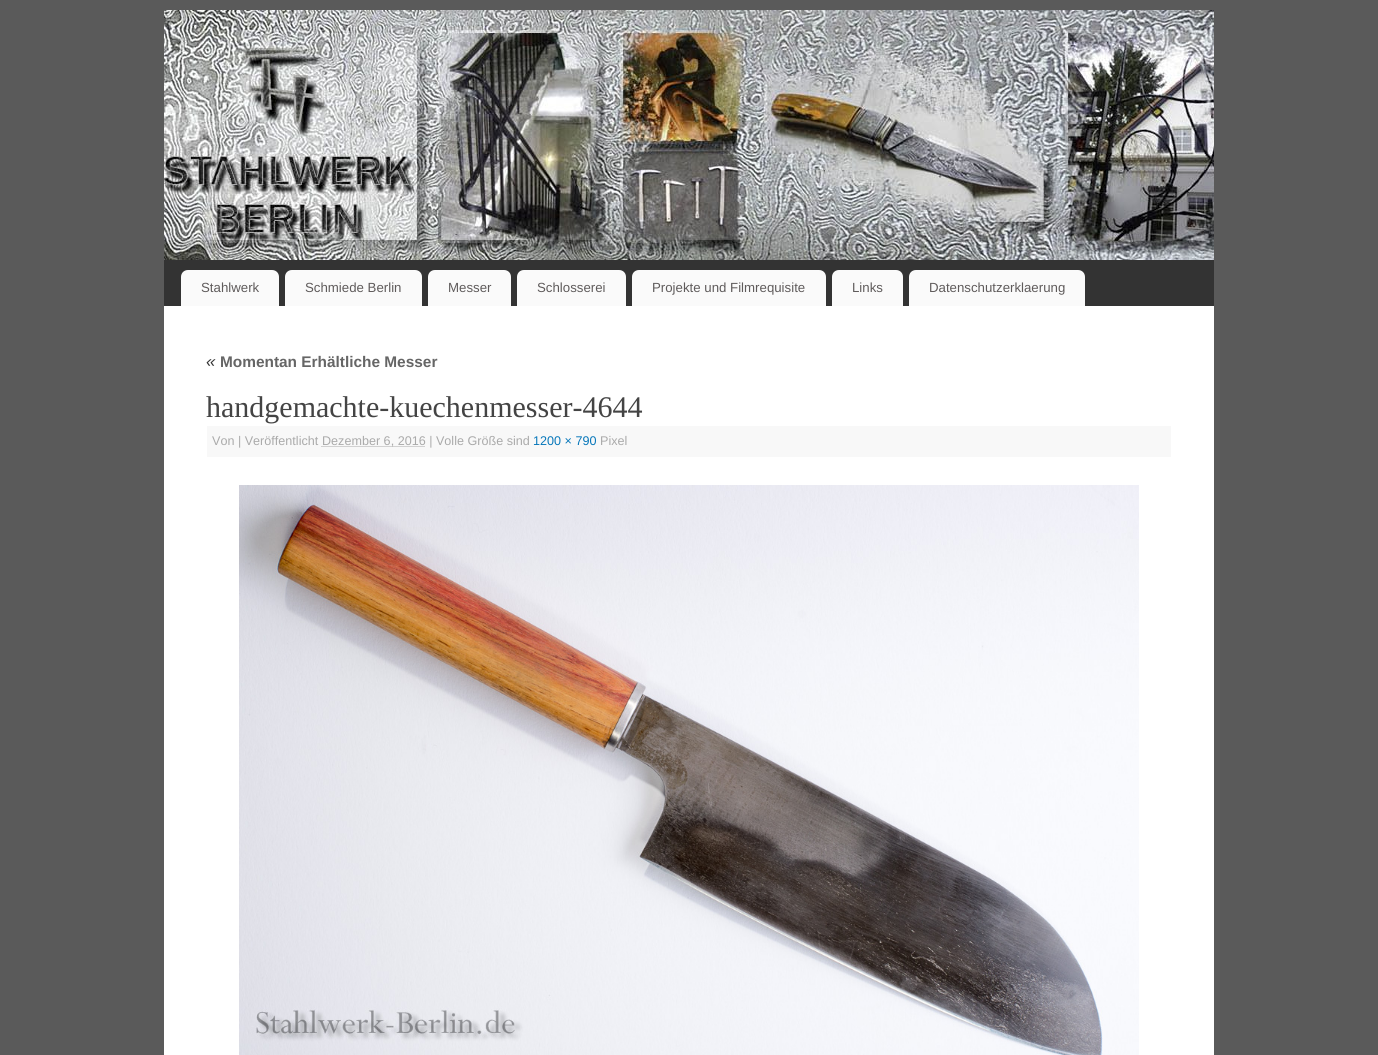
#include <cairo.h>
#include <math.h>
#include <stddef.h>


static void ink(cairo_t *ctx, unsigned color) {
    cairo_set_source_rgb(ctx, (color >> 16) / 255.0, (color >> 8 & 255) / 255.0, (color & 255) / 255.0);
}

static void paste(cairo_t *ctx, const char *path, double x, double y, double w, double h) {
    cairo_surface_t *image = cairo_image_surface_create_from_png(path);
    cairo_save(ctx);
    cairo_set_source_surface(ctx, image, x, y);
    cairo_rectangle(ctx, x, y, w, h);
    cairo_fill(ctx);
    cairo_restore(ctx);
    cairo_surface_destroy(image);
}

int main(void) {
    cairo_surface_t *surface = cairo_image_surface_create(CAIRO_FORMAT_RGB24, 1378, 1055);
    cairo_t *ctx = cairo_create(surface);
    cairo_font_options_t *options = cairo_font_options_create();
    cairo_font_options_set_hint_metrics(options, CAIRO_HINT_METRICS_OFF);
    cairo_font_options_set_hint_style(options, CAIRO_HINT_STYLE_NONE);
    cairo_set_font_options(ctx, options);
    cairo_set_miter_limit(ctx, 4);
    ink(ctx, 0x5A5A5A);
    cairo_paint(ctx);
    ink(ctx, 0x333333);
    cairo_rectangle(ctx, 164, 260, 1050, 46);
    cairo_fill(ctx);
    paste(ctx, "media/1.png", 164, 10, 1050, 250);
    ink(ctx, 0xFAFAFA);
    cairo_new_path(ctx);
    cairo_move_to(ctx, 188, 270);
    cairo_line_to(ctx, 272, 270);
    cairo_curve_to(ctx, 276, 270, 279, 273, 279, 277);
    cairo_line_to(ctx, 279, 306);
    cairo_line_to(ctx, 181, 306);
    cairo_line_to(ctx, 181, 277);
    cairo_curve_to(ctx, 181, 273, 184, 270, 188, 270);
    cairo_close_path(ctx);
    cairo_fill(ctx);
    cairo_select_font_face(ctx, "Liberation Sans", CAIRO_FONT_SLANT_NORMAL, CAIRO_FONT_WEIGHT_NORMAL);
    cairo_set_font_size(ctx, 13.25);
    ink(ctx, 0x5F5B5B);
    cairo_move_to(ctx, 201, 292);
    cairo_show_text(ctx, "Stahlwerk");
    ink(ctx, 0xFAFAFA);
    cairo_new_path(ctx);
    cairo_move_to(ctx, 292, 270);
    cairo_line_to(ctx, 415, 270);
    cairo_curve_to(ctx, 419, 270, 422, 273, 422, 277);
    cairo_line_to(ctx, 422, 306);
    cairo_line_to(ctx, 285, 306);
    cairo_line_to(ctx, 285, 277);
    cairo_curve_to(ctx, 285, 273, 288, 270, 292, 270);
    cairo_close_path(ctx);
    cairo_fill(ctx);
    ink(ctx, 0x5F5B5B);
    cairo_move_to(ctx, 305, 292);
    cairo_show_text(ctx, "Schmiede Berlin");
    ink(ctx, 0xFAFAFA);
    cairo_new_path(ctx);
    cairo_move_to(ctx, 435, 270);
    cairo_line_to(ctx, 504, 270);
    cairo_curve_to(ctx, 508, 270, 511, 273, 511, 277);
    cairo_line_to(ctx, 511, 306);
    cairo_line_to(ctx, 428, 306);
    cairo_line_to(ctx, 428, 277);
    cairo_curve_to(ctx, 428, 273, 431, 270, 435, 270);
    cairo_close_path(ctx);
    cairo_fill(ctx);
    ink(ctx, 0x5F5B5B);
    cairo_move_to(ctx, 448, 292);
    cairo_show_text(ctx, "Messer");
    ink(ctx, 0xFAFAFA);
    cairo_new_path(ctx);
    cairo_move_to(ctx, 524, 270);
    cairo_line_to(ctx, 619, 270);
    cairo_curve_to(ctx, 623, 270, 626, 273, 626, 277);
    cairo_line_to(ctx, 626, 306);
    cairo_line_to(ctx, 517, 306);
    cairo_line_to(ctx, 517, 277);
    cairo_curve_to(ctx, 517, 273, 520, 270, 524, 270);
    cairo_close_path(ctx);
    cairo_fill(ctx);
    ink(ctx, 0x5F5B5B);
    cairo_move_to(ctx, 537, 292);
    cairo_show_text(ctx, "Schlosserei");
    ink(ctx, 0xFAFAFA);
    cairo_new_path(ctx);
    cairo_move_to(ctx, 639, 270);
    cairo_line_to(ctx, 819, 270);
    cairo_curve_to(ctx, 823, 270, 826, 273, 826, 277);
    cairo_line_to(ctx, 826, 306);
    cairo_line_to(ctx, 632, 306);
    cairo_line_to(ctx, 632, 277);
    cairo_curve_to(ctx, 632, 273, 635, 270, 639, 270);
    cairo_close_path(ctx);
    cairo_fill(ctx);
    ink(ctx, 0x5F5B5B);
    cairo_move_to(ctx, 652, 292);
    cairo_show_text(ctx, "Projekte und Filmrequisite");
    ink(ctx, 0xFAFAFA);
    cairo_new_path(ctx);
    cairo_move_to(ctx, 839, 270);
    cairo_line_to(ctx, 896, 270);
    cairo_curve_to(ctx, 900, 270, 903, 273, 903, 277);
    cairo_line_to(ctx, 903, 306);
    cairo_line_to(ctx, 832, 306);
    cairo_line_to(ctx, 832, 277);
    cairo_curve_to(ctx, 832, 273, 835, 270, 839, 270);
    cairo_close_path(ctx);
    cairo_fill(ctx);
    ink(ctx, 0x5F5B5B);
    cairo_move_to(ctx, 852, 292);
    cairo_show_text(ctx, "Links");
    ink(ctx, 0xFAFAFA);
    cairo_new_path(ctx);
    cairo_move_to(ctx, 916, 270);
    cairo_line_to(ctx, 1078, 270);
    cairo_curve_to(ctx, 1082, 270, 1085, 273, 1085, 277);
    cairo_line_to(ctx, 1085, 306);
    cairo_line_to(ctx, 909, 306);
    cairo_line_to(ctx, 909, 277);
    cairo_curve_to(ctx, 909, 273, 912, 270, 916, 270);
    cairo_close_path(ctx);
    cairo_fill(ctx);
    ink(ctx, 0x5F5B5B);
    cairo_move_to(ctx, 929, 292);
    cairo_show_text(ctx, "Datenschutzerklaerung");
    ink(ctx, 0xFFFFFF);
    cairo_rectangle(ctx, 164, 306, 1050, 749);
    cairo_fill(ctx);
    cairo_select_font_face(ctx, "Liberation Sans", CAIRO_FONT_SLANT_ITALIC, CAIRO_FONT_WEIGHT_NORMAL);
    cairo_set_font_size(ctx, 17);
    ink(ctx, 0x333333);
    cairo_move_to(ctx, 206, 367);
    cairo_show_text(ctx, "«");
    cairo_select_font_face(ctx, "Liberation Sans", CAIRO_FONT_SLANT_NORMAL, CAIRO_FONT_WEIGHT_BOLD);
    cairo_set_font_size(ctx, 15.4);
    ink(ctx, 0x666666);
    cairo_move_to(ctx, 220, 367);
    cairo_show_text(ctx, "Momentan Erhältliche Messer");
    cairo_select_font_face(ctx, "Liberation Serif", CAIRO_FONT_SLANT_NORMAL, CAIRO_FONT_WEIGHT_NORMAL);
    cairo_set_font_size(ctx, 30);
    ink(ctx, 0x444444);
    cairo_move_to(ctx, 206, 417);
    cairo_show_text(ctx, "handgemachte-kuechenmesser-4644");
    ink(ctx, 0xF8F8F8);
    cairo_rectangle(ctx, 207, 426, 964, 31);
    cairo_fill(ctx);
    cairo_select_font_face(ctx, "Liberation Sans", CAIRO_FONT_SLANT_NORMAL, CAIRO_FONT_WEIGHT_NORMAL);
    cairo_set_font_size(ctx, 12.6);
    ink(ctx, 0xAAAAAA);
    cairo_move_to(ctx, 212, 445);
    cairo_show_text(ctx, "Von | Veröffentlicht");
    cairo_new_path(ctx);
    cairo_move_to(ctx, 321.5, 446.5);
    cairo_line_to(ctx, 425.5, 446.5);
    cairo_set_line_width(ctx, 1);
    cairo_set_dash(ctx, (double[]){1, 1}, 2, 0);
    cairo_stroke(ctx);
    cairo_move_to(ctx, 322, 445);
    cairo_show_text(ctx, "Dezember 6, 2016 | Volle Größe sind");
    ink(ctx, 0x0777BA);
    cairo_move_to(ctx, 533, 445);
    cairo_show_text(ctx, "1200 × 790");
    ink(ctx, 0xAAAAAA);
    cairo_move_to(ctx, 600, 445);
    cairo_show_text(ctx, "Pixel");
    paste(ctx, "media/2.png", 239, 485, 900, 570);
    cairo_surface_write_to_png(surface, "image.png");
    cairo_font_options_destroy(options);
    cairo_destroy(ctx);
    cairo_surface_destroy(surface);
    return 0;
}
